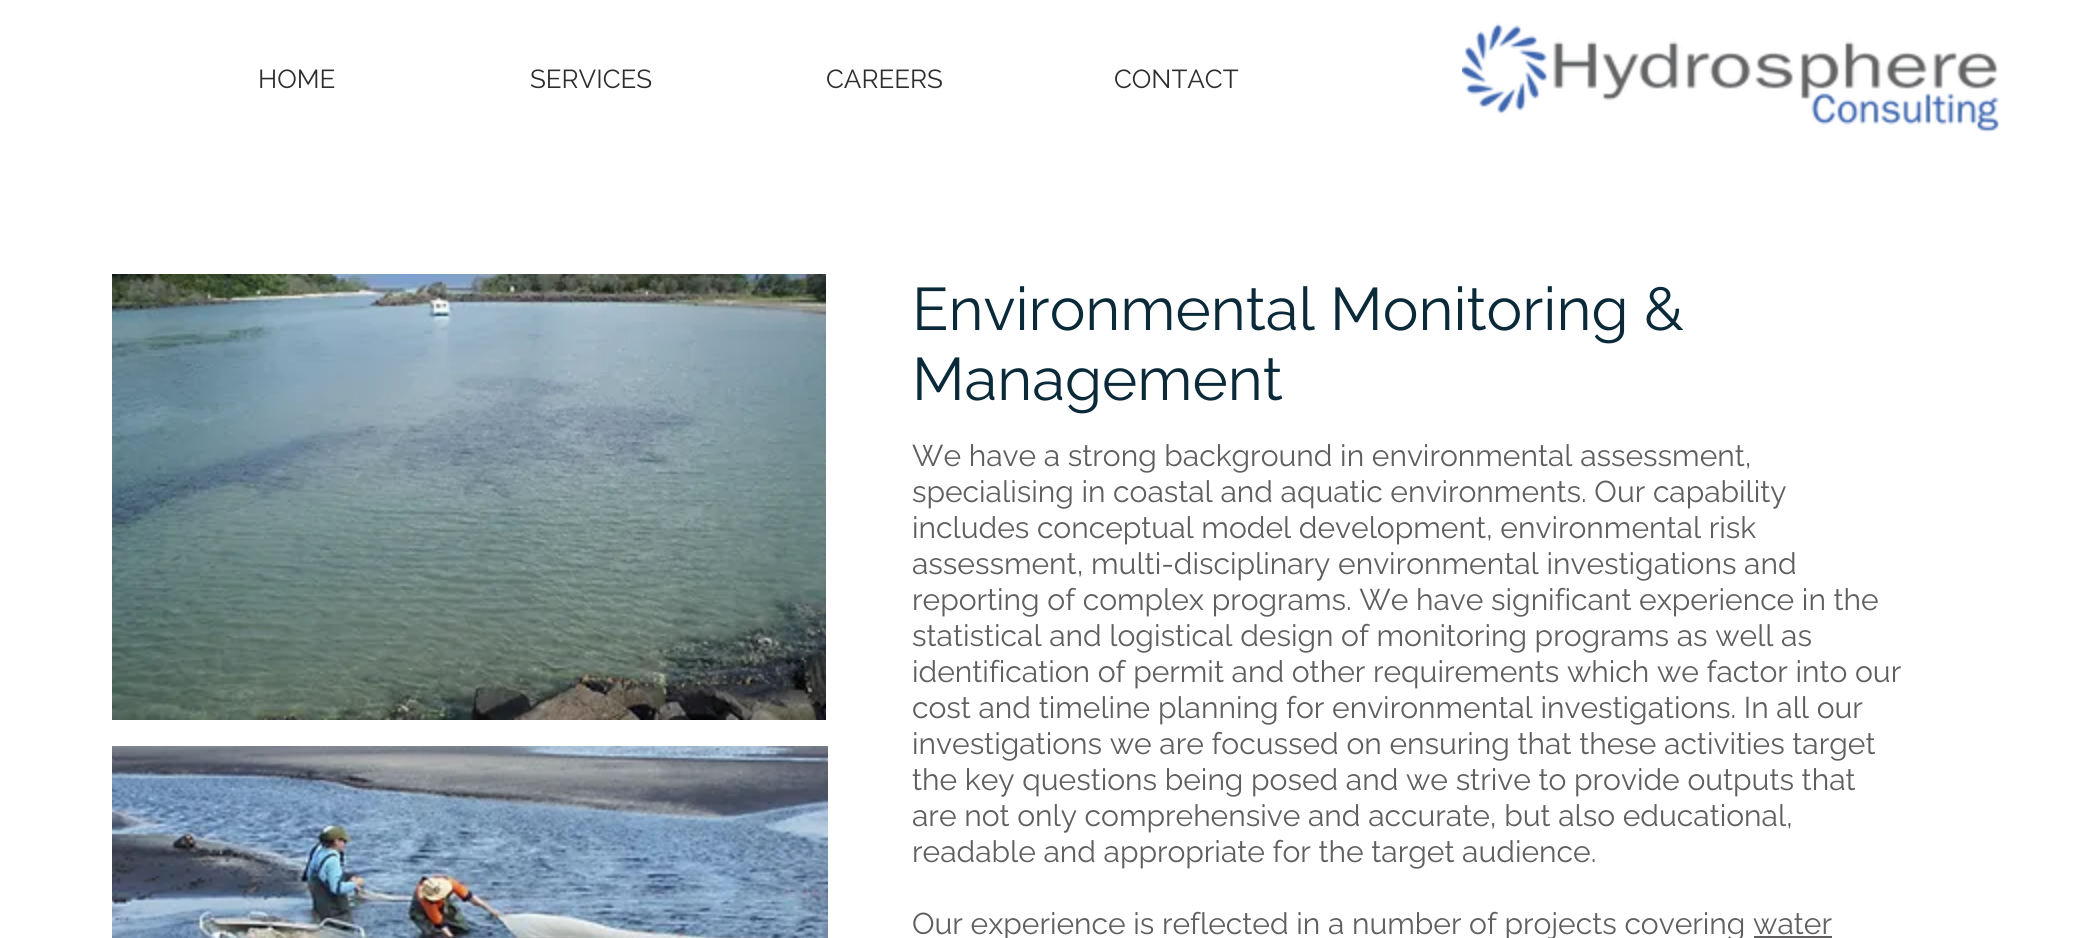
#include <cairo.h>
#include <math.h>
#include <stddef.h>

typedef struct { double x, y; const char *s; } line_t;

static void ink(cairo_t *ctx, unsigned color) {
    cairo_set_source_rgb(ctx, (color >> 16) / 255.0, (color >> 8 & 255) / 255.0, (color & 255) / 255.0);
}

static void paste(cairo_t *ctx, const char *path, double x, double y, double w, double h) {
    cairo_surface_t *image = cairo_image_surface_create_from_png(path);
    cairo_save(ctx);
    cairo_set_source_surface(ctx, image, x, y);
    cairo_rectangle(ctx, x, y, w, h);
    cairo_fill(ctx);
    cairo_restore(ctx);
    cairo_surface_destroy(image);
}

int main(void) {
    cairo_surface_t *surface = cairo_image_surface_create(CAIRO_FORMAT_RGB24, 2100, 938);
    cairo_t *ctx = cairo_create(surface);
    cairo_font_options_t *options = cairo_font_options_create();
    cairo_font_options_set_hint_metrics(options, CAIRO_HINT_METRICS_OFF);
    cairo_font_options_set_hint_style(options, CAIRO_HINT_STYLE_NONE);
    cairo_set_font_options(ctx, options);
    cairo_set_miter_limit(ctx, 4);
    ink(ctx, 0xFFFFFF);
    cairo_paint(ctx);
    cairo_select_font_face(ctx, "Raleway", CAIRO_FONT_SLANT_NORMAL, CAIRO_FONT_WEIGHT_NORMAL);
    cairo_set_font_size(ctx, 26);
    ink(ctx, 0x2F2E2E);
    {
        static const line_t items[] = {
            {258, 88, "HOME"},
            {530, 88, "SERVICES"},
            {826, 88, "CAREERS"},
            {1114, 88, "CONTACT"},
        };
        for (size_t i = 0; i < sizeof items / sizeof *items; i++) {
            cairo_move_to(ctx, items[i].x, items[i].y);
            cairo_show_text(ctx, items[i].s);
        }
    }
    paste(ctx, "media/1.png", 1462, 23, 537, 110);
    paste(ctx, "media/2.png", 112, 274, 714, 446);
    cairo_set_font_size(ctx, 60);
    ink(ctx, 0x0B2A39);
    cairo_move_to(ctx, 912, 330);
    cairo_show_text(ctx, "Environmental Monitoring &");
    cairo_move_to(ctx, 912, 400);
    cairo_show_text(ctx, "Management");
    paste(ctx, "media/3.png", 112, 746, 716, 192);
    cairo_set_font_size(ctx, 30);
    ink(ctx, 0x605E5E);
    {
        static const line_t items[] = {
            {912, 466, "We have a strong background in environmental assessment,"},
            {912, 502, "specialising in coastal and aquatic environments. Our capability"},
            {912, 538, "includes conceptual model development, environmental risk"},
            {912, 574, "assessment, multi-disciplinary environmental investigations and"},
            {912, 610, "reporting of complex programs. We have significant experience in the"},
            {912, 646, "statistical and logistical design of monitoring programs as well as"},
            {912, 682, "identification of permit and other requirements which we factor into our"},
            {912, 718, "cost and timeline planning for environmental investigations. In all our"},
            {912, 754, "investigations we are focussed on ensuring that these activities target"},
            {912, 790, "the key questions being posed and we strive to provide outputs that"},
            {912, 826, "are not only comprehensive and accurate, but also educational,"},
            {912, 862, "readable and appropriate for the target audience."},
            {912, 934, "Our experience is reflected in a number of projects covering water"},
        };
        for (size_t i = 0; i < sizeof items / sizeof *items; i++) {
            cairo_move_to(ctx, items[i].x, items[i].y);
            cairo_show_text(ctx, items[i].s);
        }
    }
    cairo_rectangle(ctx, 1754, 936, 78, 2);
    cairo_fill(ctx);
    cairo_surface_write_to_png(surface, "image.png");
    cairo_font_options_destroy(options);
    cairo_destroy(ctx);
    cairo_surface_destroy(surface);
    return 0;
}
